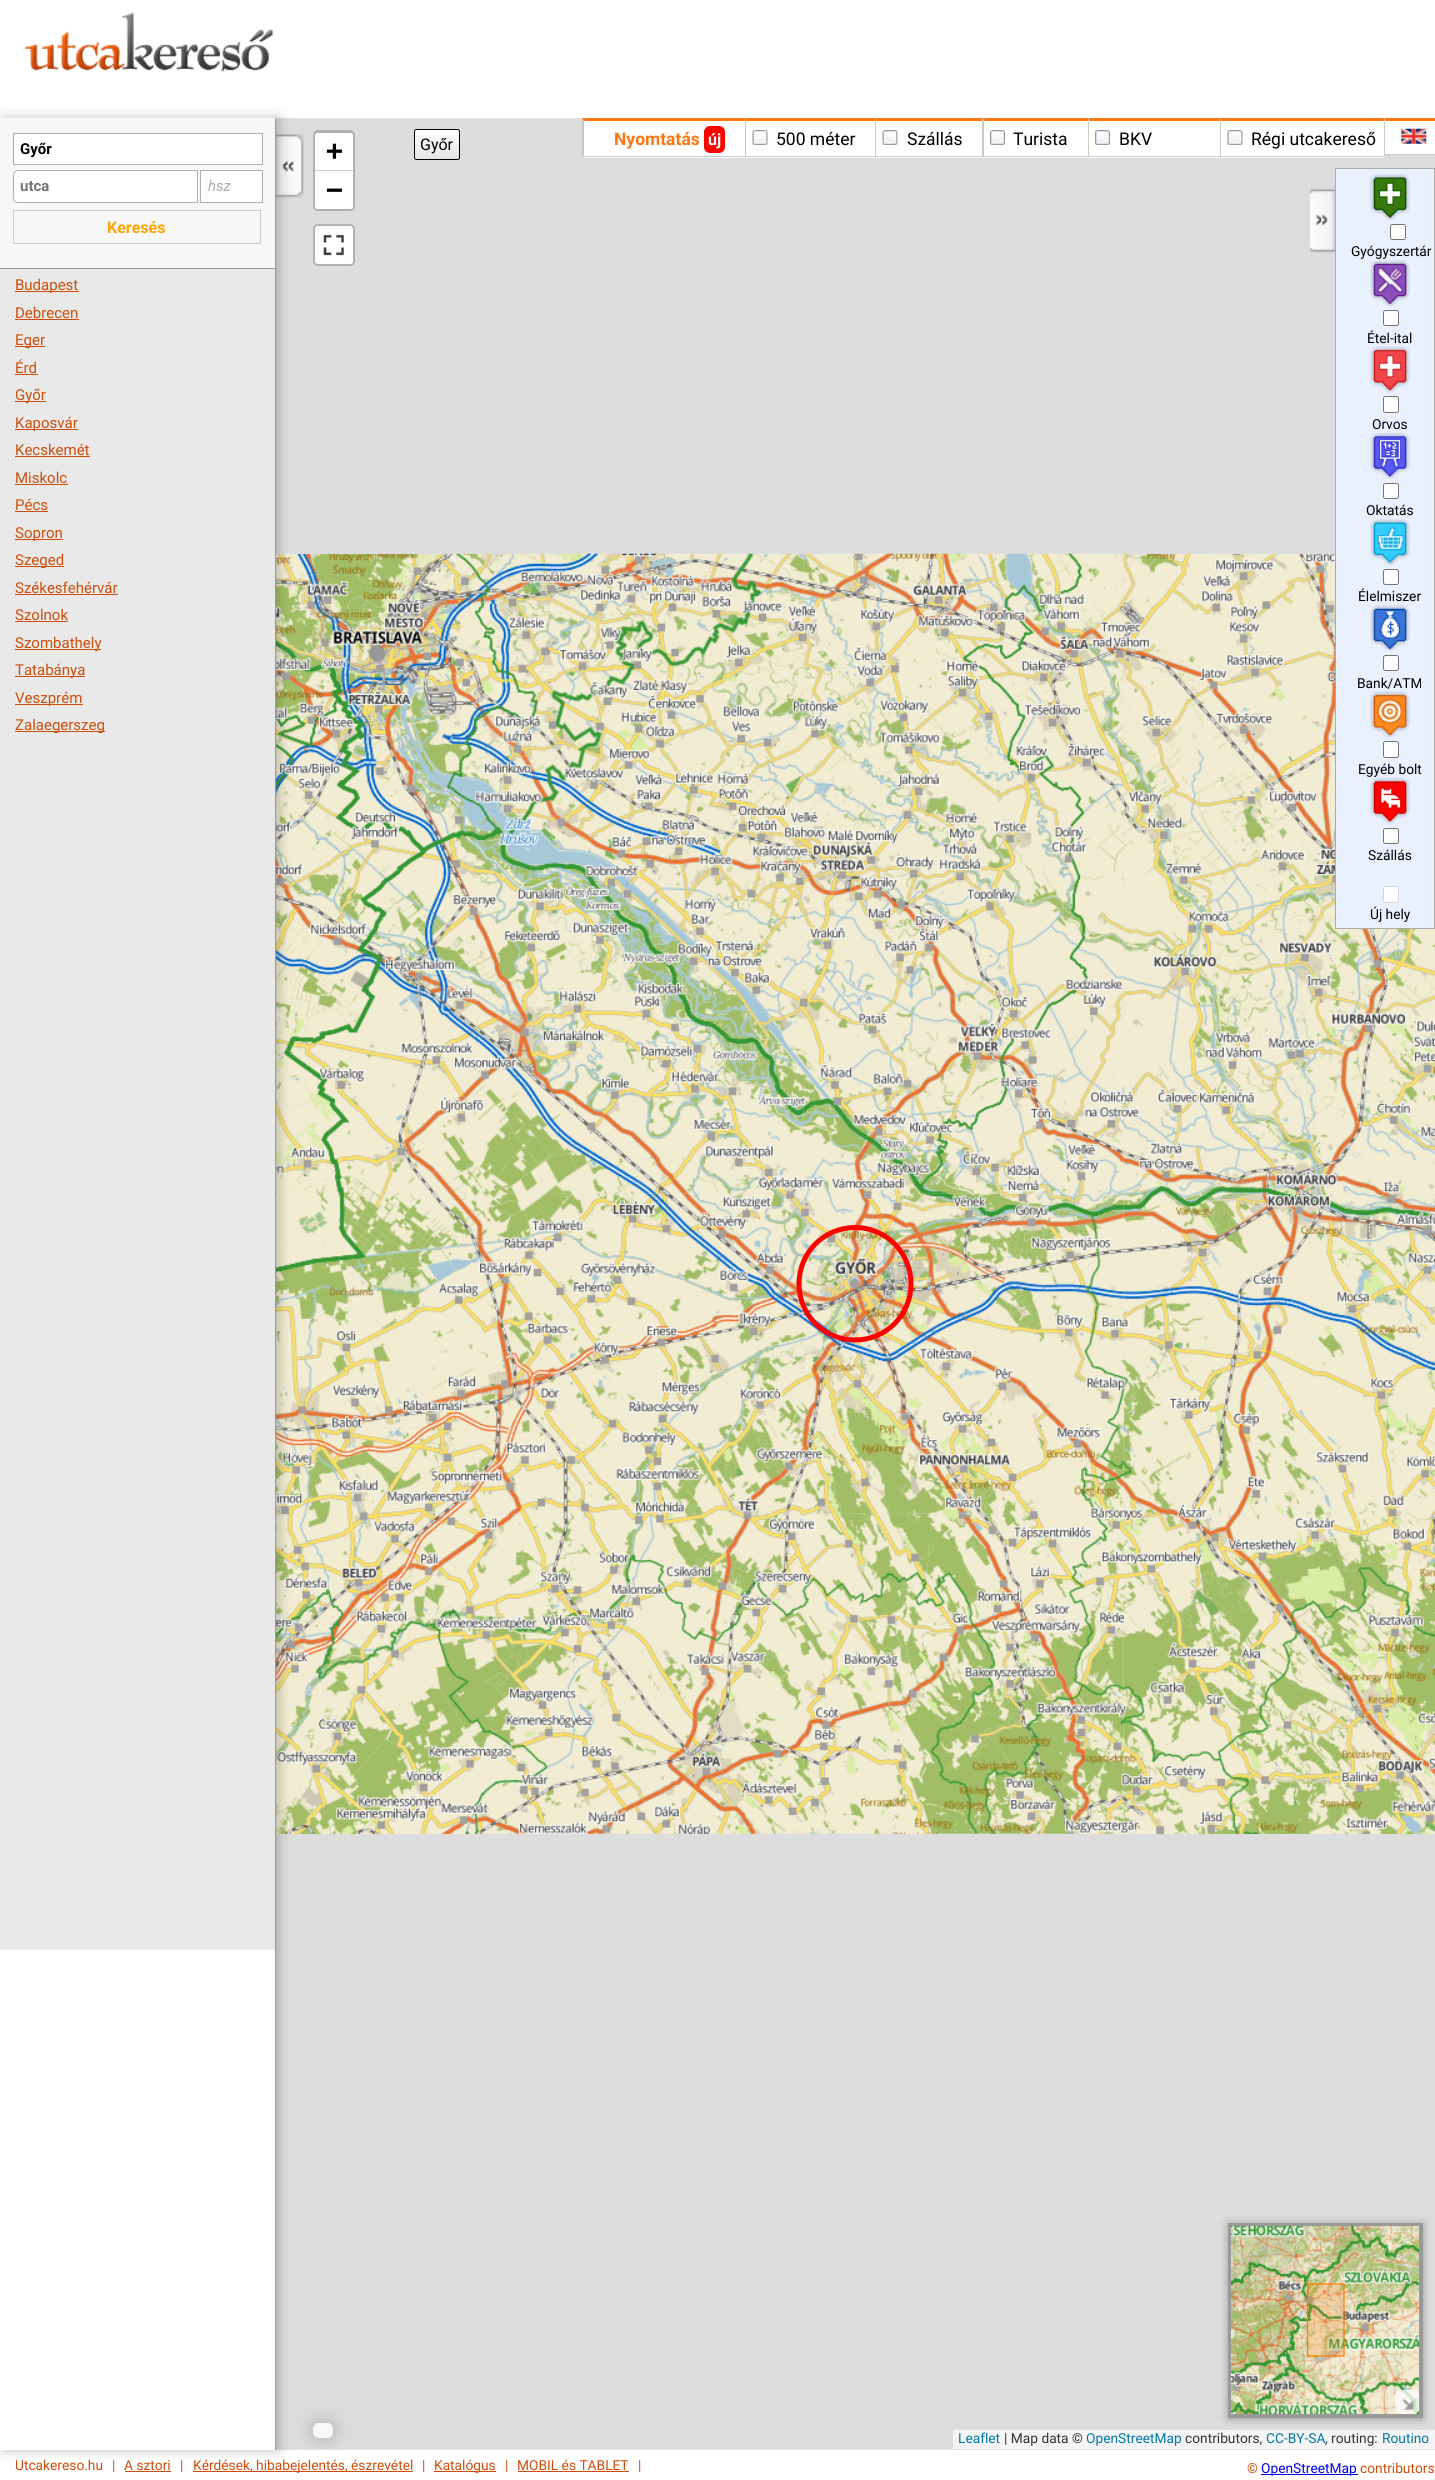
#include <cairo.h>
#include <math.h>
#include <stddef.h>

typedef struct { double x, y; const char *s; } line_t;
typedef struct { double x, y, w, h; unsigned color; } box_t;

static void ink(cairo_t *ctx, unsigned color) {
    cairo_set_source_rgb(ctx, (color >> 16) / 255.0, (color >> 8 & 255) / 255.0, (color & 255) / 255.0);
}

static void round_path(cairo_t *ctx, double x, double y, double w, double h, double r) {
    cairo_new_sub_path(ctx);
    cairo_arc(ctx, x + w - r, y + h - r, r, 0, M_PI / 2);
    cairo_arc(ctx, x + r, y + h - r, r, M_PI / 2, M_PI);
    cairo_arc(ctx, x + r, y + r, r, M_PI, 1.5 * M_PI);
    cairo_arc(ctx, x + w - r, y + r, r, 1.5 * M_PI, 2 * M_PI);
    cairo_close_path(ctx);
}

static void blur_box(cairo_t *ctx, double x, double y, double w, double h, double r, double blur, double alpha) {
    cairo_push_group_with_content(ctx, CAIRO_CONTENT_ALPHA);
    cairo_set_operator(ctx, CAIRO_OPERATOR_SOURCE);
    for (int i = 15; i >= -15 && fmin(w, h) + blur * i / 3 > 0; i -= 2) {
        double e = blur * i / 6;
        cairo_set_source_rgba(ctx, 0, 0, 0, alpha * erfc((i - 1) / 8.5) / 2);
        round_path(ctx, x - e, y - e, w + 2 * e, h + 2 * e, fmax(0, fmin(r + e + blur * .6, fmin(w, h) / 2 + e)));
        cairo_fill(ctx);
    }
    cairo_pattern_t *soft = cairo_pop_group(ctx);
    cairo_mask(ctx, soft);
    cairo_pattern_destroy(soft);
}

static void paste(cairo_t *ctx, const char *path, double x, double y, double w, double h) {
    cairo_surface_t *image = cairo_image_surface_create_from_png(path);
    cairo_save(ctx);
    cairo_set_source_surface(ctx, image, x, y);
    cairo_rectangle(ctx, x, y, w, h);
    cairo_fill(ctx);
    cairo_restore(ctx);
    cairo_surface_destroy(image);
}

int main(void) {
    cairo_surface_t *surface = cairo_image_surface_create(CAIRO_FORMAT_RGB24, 1435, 2480);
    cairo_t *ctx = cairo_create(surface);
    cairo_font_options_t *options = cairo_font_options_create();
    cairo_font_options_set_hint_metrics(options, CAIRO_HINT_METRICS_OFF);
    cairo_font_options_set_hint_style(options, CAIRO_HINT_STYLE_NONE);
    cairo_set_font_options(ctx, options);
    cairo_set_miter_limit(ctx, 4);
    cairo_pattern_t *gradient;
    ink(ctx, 0xDDDDDD);
    cairo_paint(ctx);
    ink(ctx, 0xFFFFFF);
    cairo_rectangle(ctx, 0, 0, 1435, 118);
    cairo_fill(ctx);
    ink(ctx, 0xE2E2E2);
    cairo_rectangle(ctx, 276, 118, 307, 1);
    cairo_fill(ctx);
    paste(ctx, "media/1.png", 25, 12, 248, 60);
    paste(ctx, "media/2.png", 276, 133, 28, 65);
    paste(ctx, "media/20.png", 484, 1193, 320, 321);
    paste(ctx, "media/21.png", 803, 1193, 321, 321);
    paste(ctx, "media/16.png", 484, 873, 320, 321);
    paste(ctx, "media/17.png", 803, 873, 321, 321);
    paste(ctx, "media/12.png", 483, 553, 321, 321);
    paste(ctx, "media/11.png", 276, 554, 208, 320);
    paste(ctx, "media/15.png", 276, 874, 208, 320);
    paste(ctx, "media/19.png", 276, 1194, 208, 320);
    paste(ctx, "media/23.png", 276, 1514, 208, 320);
    cairo_save(ctx);
    cairo_set_fill_rule(ctx, CAIRO_FILL_RULE_EVEN_ODD);
    cairo_new_path(ctx);
    cairo_move_to(ctx, 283, 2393);
    cairo_line_to(ctx, 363, 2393);
    cairo_line_to(ctx, 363, 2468);
    cairo_line_to(ctx, 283, 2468);
    cairo_close_path(ctx);
    cairo_move_to(ctx, 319, 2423);
    cairo_line_to(ctx, 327, 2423);
    cairo_curve_to(ctx, 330.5, 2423, 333, 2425.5, 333, 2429);
    cairo_line_to(ctx, 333, 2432);
    cairo_curve_to(ctx, 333, 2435.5, 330.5, 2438, 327, 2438);
    cairo_line_to(ctx, 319, 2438);
    cairo_curve_to(ctx, 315.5, 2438, 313, 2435.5, 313, 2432);
    cairo_line_to(ctx, 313, 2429);
    cairo_curve_to(ctx, 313, 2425.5, 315.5, 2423, 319, 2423);
    cairo_close_path(ctx);
    cairo_clip(ctx);
    ink(ctx, 0x000000);
    blur_box(ctx, 313, 2423, 20, 15, 6, 9.5, 0.2);
    cairo_restore(ctx);
    ink(ctx, 0xFFFFFF);
    cairo_rectangle(ctx, 0, 2450, 1435, 30);
    cairo_fill(ctx);
    ink(ctx, 0xE2E2E2);
    cairo_rectangle(ctx, 276, 2449, 1159, 1);
    cairo_fill(ctx);
    ink(ctx, 0x323232);
    blur_box(ctx, 3, 118, 276, 2332, 0, 6, 0.3);
    {
        static const box_t items[] = {
            {275, 118, 1, 2332, 0x959C9F},
            {0, 1950, 275, 500, 0xFFFFFF},
            {0, 118, 275, 150, 0xF7F7F7},
        };
        for (size_t i = 0; i < sizeof items / sizeof *items; i++) {
            ink(ctx, items[i].color);
            cairo_rectangle(ctx, items[i].x, items[i].y, items[i].w, items[i].h);
            cairo_fill(ctx);
        }
    }
    ink(ctx, 0xFFFFFF);
    cairo_rectangle(ctx, 13.5, 133.5, 249, 31);
    cairo_fill_preserve(ctx);
    ink(ctx, 0xB0B0B0);
    cairo_set_line_width(ctx, 1);
    cairo_stroke(ctx);
    cairo_select_font_face(ctx, "Roboto", CAIRO_FONT_SLANT_NORMAL, CAIRO_FONT_WEIGHT_BOLD);
    cairo_set_font_size(ctx, 15);
    ink(ctx, 0x000000);
    cairo_move_to(ctx, 20, 154);
    cairo_show_text(ctx, "Győr");
    ink(ctx, 0xFFFFFF);
    cairo_new_path(ctx);
    cairo_move_to(ctx, 18, 170.5);
    cairo_line_to(ctx, 197.5, 170.5);
    cairo_line_to(ctx, 197.5, 202.5);
    cairo_line_to(ctx, 18, 202.5);
    cairo_curve_to(ctx, 15.5, 202.5, 13.5, 200.5, 13.5, 198);
    cairo_line_to(ctx, 13.5, 175);
    cairo_curve_to(ctx, 13.5, 172.5, 15.5, 170.5, 18, 170.5);
    cairo_close_path(ctx);
    cairo_fill_preserve(ctx);
    ink(ctx, 0xB0B0B0);
    cairo_stroke(ctx);
    ink(ctx, 0x757575);
    cairo_move_to(ctx, 20, 191);
    cairo_show_text(ctx, "utca");
    ink(ctx, 0xFFFFFF);
    cairo_rectangle(ctx, 200.5, 170.5, 62, 32);
    cairo_fill_preserve(ctx);
    ink(ctx, 0xB0B0B0);
    cairo_stroke(ctx);
    cairo_select_font_face(ctx, "Roboto", CAIRO_FONT_SLANT_ITALIC, CAIRO_FONT_WEIGHT_NORMAL);
    ink(ctx, 0xAAAAAA);
    cairo_move_to(ctx, 208, 191);
    cairo_show_text(ctx, "hsz");
    cairo_rectangle(ctx, 13.5, 210.5, 247, 33);
    ink(ctx, 0xCCCCCC);
    cairo_stroke(ctx);
    cairo_select_font_face(ctx, "Roboto", CAIRO_FONT_SLANT_NORMAL, CAIRO_FONT_WEIGHT_BOLD);
    cairo_set_font_size(ctx, 16);
    ink(ctx, 0xFFA500);
    cairo_move_to(ctx, 107, 233);
    cairo_show_text(ctx, "Keresés");
    {
        static const box_t items[] = {
            {0, 269, 275, 1681, 0xE9E9E9},
            {0, 268, 275, 1, 0x959C9F},
            {15, 291, 64, 1, 0xCC4E0A},
        };
        for (size_t i = 0; i < sizeof items / sizeof *items; i++) {
            ink(ctx, items[i].color);
            cairo_rectangle(ctx, items[i].x, items[i].y, items[i].w, items[i].h);
            cairo_fill(ctx);
        }
    }
    cairo_select_font_face(ctx, "Roboto", CAIRO_FONT_SLANT_NORMAL, CAIRO_FONT_WEIGHT_NORMAL);
    cairo_set_font_size(ctx, 15);
    cairo_move_to(ctx, 15, 290);
    cairo_show_text(ctx, "Budapest");
    cairo_move_to(ctx, 15, 318);
    cairo_show_text(ctx, "Debrecen");
    cairo_rectangle(ctx, 15, 319, 64, 1);
    cairo_fill(ctx);
    cairo_rectangle(ctx, 15, 346, 30, 1);
    cairo_fill(ctx);
    cairo_move_to(ctx, 15, 345);
    cairo_show_text(ctx, "Eger");
    cairo_move_to(ctx, 15, 373);
    cairo_show_text(ctx, "Érd");
    cairo_rectangle(ctx, 15, 374, 23, 1);
    cairo_fill(ctx);
    cairo_rectangle(ctx, 15, 401, 31, 1);
    cairo_fill(ctx);
    cairo_move_to(ctx, 15, 400);
    cairo_show_text(ctx, "Győr");
    cairo_rectangle(ctx, 15, 429, 63, 1);
    cairo_fill(ctx);
    cairo_move_to(ctx, 15, 428);
    cairo_show_text(ctx, "Kaposvár");
    cairo_move_to(ctx, 15, 455);
    cairo_show_text(ctx, "Kecskemét");
    cairo_rectangle(ctx, 15, 456, 75, 1);
    cairo_fill(ctx);
    cairo_move_to(ctx, 15, 483);
    cairo_show_text(ctx, "Miskolc");
    cairo_rectangle(ctx, 15, 484, 53, 1);
    cairo_fill(ctx);
    cairo_move_to(ctx, 15, 510);
    cairo_show_text(ctx, "Pécs");
    cairo_rectangle(ctx, 15, 511, 33, 1);
    cairo_fill(ctx);
    cairo_rectangle(ctx, 15, 539, 48, 1);
    cairo_fill(ctx);
    cairo_move_to(ctx, 15, 538);
    cairo_show_text(ctx, "Sopron");
    cairo_rectangle(ctx, 15, 566, 49, 1);
    cairo_fill(ctx);
    cairo_move_to(ctx, 15, 565);
    cairo_show_text(ctx, "Szeged");
    cairo_move_to(ctx, 15, 593);
    cairo_show_text(ctx, "Székesfehérvár");
    cairo_rectangle(ctx, 15, 594, 103, 1);
    cairo_fill(ctx);
    cairo_move_to(ctx, 15, 620);
    cairo_show_text(ctx, "Szolnok");
    cairo_rectangle(ctx, 15, 621, 53, 1);
    cairo_fill(ctx);
    cairo_rectangle(ctx, 15, 649, 86, 1);
    cairo_fill(ctx);
    cairo_move_to(ctx, 15, 648);
    cairo_show_text(ctx, "Szombathely");
    cairo_rectangle(ctx, 15, 676, 70, 1);
    cairo_fill(ctx);
    cairo_move_to(ctx, 15, 675);
    cairo_show_text(ctx, "Tatabánya");
    cairo_rectangle(ctx, 15, 704, 68, 1);
    cairo_fill(ctx);
    cairo_move_to(ctx, 15, 703);
    cairo_show_text(ctx, "Veszprém");
    cairo_rectangle(ctx, 15, 731, 90, 1);
    cairo_fill(ctx);
    cairo_move_to(ctx, 15, 730);
    cairo_show_text(ctx, "Zalaegerszeg");
    cairo_save(ctx);
    round_path(ctx, 414, 129, 46, 31, 2.5);
    cairo_clip(ctx);
    gradient = cairo_pattern_create_linear(437, 130, 437, 159);
    cairo_pattern_add_color_stop_rgba(gradient, 0, 1, 1, 1, 1);
    cairo_pattern_add_color_stop_rgba(gradient, 1, 0.898, 0.898, 0.898, 1);
    cairo_set_source(ctx, gradient);
    cairo_pattern_destroy(gradient);
    cairo_rectangle(ctx, 414, 130, 46, 29);
    cairo_fill(ctx);
    cairo_restore(ctx);
    round_path(ctx, 414.5, 129.5, 45, 30, 2);
    ink(ctx, 0x000000);
    cairo_stroke(ctx);
    cairo_set_font_size(ctx, 16);
    cairo_move_to(ctx, 420, 150);
    cairo_show_text(ctx, "Győr");
    ink(ctx, 0xFFFFFF);
    cairo_rectangle(ctx, 583, 119, 162, 39);
    cairo_fill(ctx);
    ink(ctx, 0xFD760F);
    cairo_new_path(ctx);
    cairo_move_to(ctx, 582, 118);
    cairo_line_to(ctx, 745, 118);
    cairo_line_to(ctx, 745, 121);
    cairo_line_to(ctx, 584, 121);
    cairo_close_path(ctx);
    cairo_fill(ctx);
    ink(ctx, 0xCCCCCC);
    cairo_rectangle(ctx, 583, 156, 162, 1);
    cairo_fill(ctx);
    ink(ctx, 0xCCCCBB);
    cairo_new_path(ctx);
    cairo_move_to(ctx, 582, 158);
    cairo_line_to(ctx, 582, 118);
    cairo_line_to(ctx, 584, 121);
    cairo_line_to(ctx, 584, 156);
    cairo_close_path(ctx);
    cairo_fill(ctx);
    cairo_select_font_face(ctx, "Roboto", CAIRO_FONT_SLANT_NORMAL, CAIRO_FONT_WEIGHT_BOLD);
    cairo_set_font_size(ctx, 17.5);
    ink(ctx, 0xFD760F);
    cairo_move_to(ctx, 614, 145);
    cairo_show_text(ctx, "Nyomtatás");
    ink(ctx, 0xFF0000);
    round_path(ctx, 704, 126, 21, 27, 6);
    cairo_fill(ctx);
    cairo_set_font_size(ctx, 16);
    ink(ctx, 0xFFFFFF);
    cairo_move_to(ctx, 708, 145);
    cairo_show_text(ctx, "új");
    cairo_rectangle(ctx, 745, 118, 238, 40);
    cairo_fill(ctx);
    ink(ctx, 0xFD760F);
    cairo_new_path(ctx);
    cairo_move_to(ctx, 745, 118);
    cairo_line_to(ctx, 875, 118);
    cairo_line_to(ctx, 875, 121);
    cairo_line_to(ctx, 746, 121);
    cairo_close_path(ctx);
    cairo_fill(ctx);
    ink(ctx, 0xCCCCCC);
    cairo_rectangle(ctx, 745, 156, 238, 1);
    cairo_fill(ctx);
    ink(ctx, 0xCCCCBB);
    cairo_new_path(ctx);
    cairo_move_to(ctx, 745, 158);
    cairo_line_to(ctx, 745, 118);
    cairo_line_to(ctx, 746, 121);
    cairo_line_to(ctx, 746, 156);
    cairo_close_path(ctx);
    cairo_fill(ctx);
    paste(ctx, "media/3.png", 752, 130, 16, 15);
    cairo_select_font_face(ctx, "Roboto", CAIRO_FONT_SLANT_NORMAL, CAIRO_FONT_WEIGHT_NORMAL);
    cairo_set_font_size(ctx, 17.5);
    ink(ctx, 0x000000);
    cairo_move_to(ctx, 776, 145);
    cairo_show_text(ctx, "500 méter");
    ink(ctx, 0xFD760F);
    cairo_new_path(ctx);
    cairo_move_to(ctx, 875, 118);
    cairo_line_to(ctx, 982, 118);
    cairo_line_to(ctx, 982, 121);
    cairo_line_to(ctx, 876, 121);
    cairo_close_path(ctx);
    cairo_fill(ctx);
    ink(ctx, 0xCCCCBB);
    cairo_new_path(ctx);
    cairo_move_to(ctx, 875, 158);
    cairo_line_to(ctx, 875, 118);
    cairo_line_to(ctx, 876, 121);
    cairo_line_to(ctx, 876, 156);
    cairo_close_path(ctx);
    cairo_fill(ctx);
    paste(ctx, "media/3.png", 882, 130, 16, 15);
    ink(ctx, 0x000000);
    cairo_move_to(ctx, 907, 145);
    cairo_show_text(ctx, "Szállás");
    ink(ctx, 0xFFFFFF);
    cairo_rectangle(ctx, 983, 119, 105, 39);
    cairo_fill(ctx);
    ink(ctx, 0xFD760F);
    cairo_new_path(ctx);
    cairo_move_to(ctx, 982, 118);
    cairo_line_to(ctx, 1088, 118);
    cairo_line_to(ctx, 1088, 121);
    cairo_line_to(ctx, 984, 121);
    cairo_close_path(ctx);
    cairo_fill(ctx);
    ink(ctx, 0xCCCCCC);
    cairo_rectangle(ctx, 983, 156, 105, 1);
    cairo_fill(ctx);
    ink(ctx, 0xCCCCBB);
    cairo_new_path(ctx);
    cairo_move_to(ctx, 982, 158);
    cairo_line_to(ctx, 982, 118);
    cairo_line_to(ctx, 984, 121);
    cairo_line_to(ctx, 984, 156);
    cairo_close_path(ctx);
    cairo_fill(ctx);
    paste(ctx, "media/4.png", 990, 130, 15, 15);
    ink(ctx, 0x000000);
    cairo_move_to(ctx, 1013, 145);
    cairo_show_text(ctx, "Turista");
    ink(ctx, 0xFFFFFF);
    cairo_rectangle(ctx, 1088, 118, 296, 40);
    cairo_fill(ctx);
    ink(ctx, 0xFD760F);
    cairo_new_path(ctx);
    cairo_move_to(ctx, 1088, 118);
    cairo_line_to(ctx, 1220, 118);
    cairo_line_to(ctx, 1220, 121);
    cairo_line_to(ctx, 1089, 121);
    cairo_close_path(ctx);
    cairo_fill(ctx);
    ink(ctx, 0xCCCCCC);
    cairo_rectangle(ctx, 1088, 156, 296, 1);
    cairo_fill(ctx);
    ink(ctx, 0xCCCCBB);
    cairo_new_path(ctx);
    cairo_move_to(ctx, 1088, 158);
    cairo_line_to(ctx, 1088, 118);
    cairo_line_to(ctx, 1089, 121);
    cairo_line_to(ctx, 1089, 156);
    cairo_close_path(ctx);
    cairo_fill(ctx);
    paste(ctx, "media/5.png", 1095, 130, 15, 15);
    ink(ctx, 0x000000);
    cairo_move_to(ctx, 1119, 145);
    cairo_show_text(ctx, "BKV");
    ink(ctx, 0xFD760F);
    cairo_new_path(ctx);
    cairo_move_to(ctx, 1220, 118);
    cairo_line_to(ctx, 1384, 118);
    cairo_line_to(ctx, 1384, 121);
    cairo_line_to(ctx, 1221, 121);
    cairo_close_path(ctx);
    cairo_fill(ctx);
    ink(ctx, 0xCCCCBB);
    cairo_new_path(ctx);
    cairo_move_to(ctx, 1220, 158);
    cairo_line_to(ctx, 1220, 118);
    cairo_line_to(ctx, 1221, 121);
    cairo_line_to(ctx, 1221, 156);
    cairo_close_path(ctx);
    cairo_fill(ctx);
    paste(ctx, "media/3.png", 1227, 130, 16, 15);
    ink(ctx, 0x000000);
    cairo_move_to(ctx, 1251, 145);
    cairo_show_text(ctx, "Régi utcakereső");
    ink(ctx, 0xFFFFFF);
    cairo_rectangle(ctx, 1384, 118, 51, 36);
    cairo_fill(ctx);
    ink(ctx, 0xFD760F);
    cairo_new_path(ctx);
    cairo_move_to(ctx, 1384, 118);
    cairo_line_to(ctx, 1435, 118);
    cairo_line_to(ctx, 1435, 121);
    cairo_line_to(ctx, 1385, 121);
    cairo_close_path(ctx);
    cairo_fill(ctx);
    ink(ctx, 0xCCCCCC);
    cairo_rectangle(ctx, 1384, 154, 51, 1);
    cairo_fill(ctx);
    ink(ctx, 0xCCCCBB);
    cairo_new_path(ctx);
    cairo_move_to(ctx, 1384, 155);
    cairo_line_to(ctx, 1384, 117.5);
    cairo_line_to(ctx, 1385, 121);
    cairo_line_to(ctx, 1385, 154);
    cairo_close_path(ctx);
    cairo_fill(ctx);
    paste(ctx, "media/6.png", 1401, 128, 26, 16);
    round_path(ctx, 314.5, 131.5, 39, 78, 3.5);
    ink(ctx, 0xB1B1B1);
    cairo_set_line_width(ctx, 3);
    cairo_stroke(ctx);
    ink(ctx, 0xFFFFFF);
    cairo_new_path(ctx);
    cairo_move_to(ctx, 317.5, 133);
    cairo_line_to(ctx, 350.5, 133);
    cairo_curve_to(ctx, 352, 133, 353, 134, 353, 135.5);
    cairo_line_to(ctx, 353, 171);
    cairo_line_to(ctx, 315, 171);
    cairo_line_to(ctx, 315, 135.5);
    cairo_curve_to(ctx, 315, 134, 316, 133, 317.5, 133);
    cairo_close_path(ctx);
    cairo_fill(ctx);
    ink(ctx, 0xCCCCCC);
    cairo_rectangle(ctx, 315, 170, 38, 1);
    cairo_fill(ctx);
    cairo_select_font_face(ctx, "DejaVu Sans Mono", CAIRO_FONT_SLANT_NORMAL, CAIRO_FONT_WEIGHT_BOLD);
    cairo_set_font_size(ctx, 28);
    ink(ctx, 0x000000);
    cairo_move_to(ctx, 326, 160);
    cairo_show_text(ctx, "+");
    ink(ctx, 0xFFFFFF);
    cairo_new_path(ctx);
    cairo_move_to(ctx, 315, 171);
    cairo_line_to(ctx, 353, 171);
    cairo_line_to(ctx, 353, 206.5);
    cairo_curve_to(ctx, 353, 208, 352, 209, 350.5, 209);
    cairo_line_to(ctx, 317.5, 209);
    cairo_curve_to(ctx, 316, 209, 315, 208, 315, 206.5);
    cairo_close_path(ctx);
    cairo_fill(ctx);
    ink(ctx, 0x000000);
    cairo_move_to(ctx, 326, 199);
    cairo_show_text(ctx, "−");
    round_path(ctx, 314.5, 225.5, 39, 39, 3.5);
    ink(ctx, 0xB1B1B1);
    cairo_stroke(ctx);
    ink(ctx, 0xFFFFFF);
    round_path(ctx, 315, 226, 38, 38, 2.5);
    cairo_fill(ctx);
    paste(ctx, "media/7.png", 323, 234, 21, 22);
    cairo_set_source_rgba(ctx, 1, 1, 1, 0.8);
    round_path(ctx, 313, 2423, 20, 15, 6);
    cairo_fill(ctx);
    ink(ctx, 0x999999);
    blur_box(ctx, 1228, 2224, 195, 195, 0, 4.5, 1);
    cairo_rectangle(ctx, 1230, 2225, 191, 191);
    ink(ctx, 0x999999);
    cairo_set_line_width(ctx, 4);
    cairo_stroke(ctx);
    paste(ctx, "media/8.png", 1231, 2226, 188, 42);
    paste(ctx, "media/9.png", 1231, 2267, 188, 147);
    cairo_set_source_rgba(ctx, 1, 0.471, 0, 0.2);
    cairo_rectangle(ctx, 1308, 2284, 36, 72);
    cairo_fill(ctx);
    cairo_new_path(ctx);
    cairo_move_to(ctx, 1307.5, 2356);
    cairo_line_to(ctx, 1307.5, 2284);
    cairo_line_to(ctx, 1344, 2284);
    cairo_line_to(ctx, 1344, 2356);
    cairo_close_path(ctx);
    ink(ctx, 0xFF7800);
    cairo_set_line_width(ctx, 1.2);
    cairo_set_line_cap(ctx, CAIRO_LINE_CAP_ROUND);
    cairo_set_line_join(ctx, CAIRO_LINE_JOIN_ROUND);
    cairo_stroke(ctx);
    cairo_set_source_rgba(ctx, 1, 1, 1, 0.75);
    round_path(ctx, 1395, 2390, 24, 24, 5);
    cairo_fill(ctx);
    paste(ctx, "media/10.png", 1402, 2398, 12, 13);
    ink(ctx, 0xF5F5F5);
    cairo_rectangle(ctx, 953, 2430, 482, 19);
    cairo_fill(ctx);
    cairo_select_font_face(ctx, "Roboto", CAIRO_FONT_SLANT_NORMAL, CAIRO_FONT_WEIGHT_NORMAL);
    cairo_set_font_size(ctx, 13.75);
    ink(ctx, 0x0078A8);
    cairo_move_to(ctx, 958, 2443);
    cairo_show_text(ctx, "Leaflet");
    ink(ctx, 0x333333);
    cairo_move_to(ctx, 1004, 2443);
    cairo_show_text(ctx, "| Map data ©");
    ink(ctx, 0x0078A8);
    cairo_move_to(ctx, 1086, 2443);
    cairo_show_text(ctx, "OpenStreetMap");
    ink(ctx, 0x333333);
    cairo_move_to(ctx, 1185, 2443);
    cairo_show_text(ctx, "contributors,");
    ink(ctx, 0x0078A8);
    cairo_move_to(ctx, 1266, 2443);
    cairo_show_text(ctx, "CC-BY-SA");
    ink(ctx, 0x333333);
    cairo_move_to(ctx, 1325, 2443);
    cairo_show_text(ctx, ", routing:");
    ink(ctx, 0x0078A8);
    cairo_move_to(ctx, 1382, 2443);
    cairo_show_text(ctx, "Routino");
    paste(ctx, "media/13.png", 803, 553, 321, 321);
    paste(ctx, "media/14.png", 1124, 554, 211, 320);
    paste(ctx, "media/18.png", 1124, 874, 311, 320);
    paste(ctx, "media/22.png", 1124, 1194, 311, 320);
    paste(ctx, "media/24.png", 484, 1513, 320, 321);
    paste(ctx, "media/25.png", 803, 1513, 321, 321);
    paste(ctx, "media/26.png", 1124, 1514, 311, 320);
    cairo_new_path(ctx);
    cairo_move_to(ctx, 799, 1284);
    cairo_curve_to(ctx, 799, 1315, 824, 1340, 855, 1340);
    cairo_curve_to(ctx, 886, 1340, 911, 1315, 911, 1284);
    cairo_curve_to(ctx, 911, 1252.5, 886, 1227.5, 855, 1227.5);
    cairo_curve_to(ctx, 824, 1227.5, 799, 1252.5, 799, 1284);
    ink(ctx, 0xFF0000);
    cairo_set_line_width(ctx, 5);
    cairo_stroke(ctx);
    ink(ctx, 0xE9F1FF);
    cairo_rectangle(ctx, 1335.5, 168.5, 99, 760);
    cairo_fill_preserve(ctx);
    ink(ctx, 0xABABA7);
    cairo_set_line_width(ctx, 1);
    cairo_set_line_cap(ctx, CAIRO_LINE_CAP_BUTT);
    cairo_set_line_join(ctx, CAIRO_LINE_JOIN_MITER);
    cairo_stroke(ctx);
    paste(ctx, "media/27.png", 1310, 188, 25, 65);
    paste(ctx, "media/28.png", 1370, 174, 40, 46);
    ink(ctx, 0xFFFFFF);
    round_path(ctx, 1390.5, 224.5, 15, 15, 2);
    cairo_fill_preserve(ctx);
    ink(ctx, 0x767676);
    cairo_stroke(ctx);
    ink(ctx, 0x000000);
    cairo_move_to(ctx, 1351, 256);
    cairo_show_text(ctx, "Gyógyszertár");
    paste(ctx, "media/29.png", 1370, 260, 40, 46);
    ink(ctx, 0xFFFFFF);
    round_path(ctx, 1383.5, 310.5, 15, 15, 2);
    cairo_fill_preserve(ctx);
    ink(ctx, 0x767676);
    cairo_stroke(ctx);
    ink(ctx, 0x000000);
    cairo_move_to(ctx, 1367, 343);
    cairo_show_text(ctx, "Étel-ital");
    paste(ctx, "media/30.png", 1370, 346, 40, 47);
    ink(ctx, 0xFFFFFF);
    round_path(ctx, 1383.5, 396.5, 15, 16, 2);
    cairo_fill_preserve(ctx);
    ink(ctx, 0x767676);
    cairo_stroke(ctx);
    ink(ctx, 0x000000);
    cairo_move_to(ctx, 1372, 429);
    cairo_show_text(ctx, "Orvos");
    paste(ctx, "media/31.png", 1370, 432, 40, 47);
    ink(ctx, 0xFFFFFF);
    round_path(ctx, 1383.5, 483.5, 15, 15, 2);
    cairo_fill_preserve(ctx);
    ink(ctx, 0x767676);
    cairo_stroke(ctx);
    ink(ctx, 0x000000);
    cairo_move_to(ctx, 1366, 515);
    cairo_show_text(ctx, "Oktatás");
    paste(ctx, "media/32.png", 1370, 519, 40, 46);
    ink(ctx, 0xFFFFFF);
    round_path(ctx, 1383.5, 569.5, 15, 15, 2);
    cairo_fill_preserve(ctx);
    ink(ctx, 0x767676);
    cairo_stroke(ctx);
    ink(ctx, 0x000000);
    cairo_move_to(ctx, 1358, 601);
    cairo_show_text(ctx, "Élelmiszer");
    paste(ctx, "media/33.png", 1370, 605, 40, 46);
    ink(ctx, 0xFFFFFF);
    round_path(ctx, 1383.5, 655.5, 15, 15, 2);
    cairo_fill_preserve(ctx);
    ink(ctx, 0x767676);
    cairo_stroke(ctx);
    ink(ctx, 0x000000);
    cairo_move_to(ctx, 1357, 688);
    cairo_show_text(ctx, "Bank/ATM");
    paste(ctx, "media/34.png", 1370, 691, 40, 47);
    ink(ctx, 0xFFFFFF);
    round_path(ctx, 1383.5, 741.5, 15, 16, 2);
    cairo_fill_preserve(ctx);
    ink(ctx, 0x767676);
    cairo_stroke(ctx);
    ink(ctx, 0x000000);
    cairo_move_to(ctx, 1358, 774);
    cairo_show_text(ctx, "Egyéb bolt");
    paste(ctx, "media/35.png", 1370, 777, 40, 47);
    ink(ctx, 0xFFFFFF);
    round_path(ctx, 1383.5, 828.5, 15, 15, 2);
    cairo_fill_preserve(ctx);
    ink(ctx, 0x767676);
    cairo_stroke(ctx);
    ink(ctx, 0x000000);
    cairo_move_to(ctx, 1368, 860);
    cairo_show_text(ctx, "Szállás");
    ink(ctx, 0xFFFFFF);
    round_path(ctx, 1383, 886, 16, 17, 2.5);
    cairo_fill(ctx);
    round_path(ctx, 1383.5, 886.5, 15, 16, 2);
    cairo_set_source_rgba(ctx, 0.463, 0.463, 0.463, 0.3);
    cairo_stroke(ctx);
    ink(ctx, 0x000000);
    cairo_move_to(ctx, 1370, 919);
    cairo_show_text(ctx, "Új hely");
    ink(ctx, 0xCC4E0A);
    {
        static const line_t items[] = {
            {15, 2470, "Utcakereso.hu"},
            {112, 2470, "|"},
            {124, 2470, "A sztori"},
        };
        for (size_t i = 0; i < sizeof items / sizeof *items; i++) {
            cairo_move_to(ctx, items[i].x, items[i].y);
            cairo_show_text(ctx, items[i].s);
        }
    }
    cairo_rectangle(ctx, 125, 2471, 46, 1);
    cairo_fill(ctx);
    cairo_move_to(ctx, 180, 2470);
    cairo_show_text(ctx, "|");
    cairo_rectangle(ctx, 193, 2471, 220, 1);
    cairo_fill(ctx);
    cairo_move_to(ctx, 193, 2470);
    cairo_show_text(ctx, "Kérdések, hibabejelentés, észrevétel");
    cairo_move_to(ctx, 422, 2470);
    cairo_show_text(ctx, "|");
    cairo_rectangle(ctx, 434, 2471, 62, 1);
    cairo_fill(ctx);
    {
        static const line_t items[] = {
            {434, 2470, "Katalógus"},
            {505, 2470, "|"},
            {517, 2470, "MOBIL és TABLET"},
        };
        for (size_t i = 0; i < sizeof items / sizeof *items; i++) {
            cairo_move_to(ctx, items[i].x, items[i].y);
            cairo_show_text(ctx, items[i].s);
        }
    }
    cairo_rectangle(ctx, 518, 2471, 111, 1);
    cairo_fill(ctx);
    cairo_move_to(ctx, 638, 2470);
    cairo_show_text(ctx, "|");
    cairo_move_to(ctx, 1247, 2473);
    cairo_show_text(ctx, "©");
    ink(ctx, 0x0000EE);
    cairo_rectangle(ctx, 1261, 2474, 97, 1);
    cairo_fill(ctx);
    cairo_move_to(ctx, 1261, 2473);
    cairo_show_text(ctx, "OpenStreetMap");
    ink(ctx, 0xCC4E0A);
    cairo_move_to(ctx, 1360, 2473);
    cairo_show_text(ctx, "contributors");
    cairo_surface_write_to_png(surface, "image.png");
    cairo_font_options_destroy(options);
    cairo_destroy(ctx);
    cairo_surface_destroy(surface);
    return 0;
}
